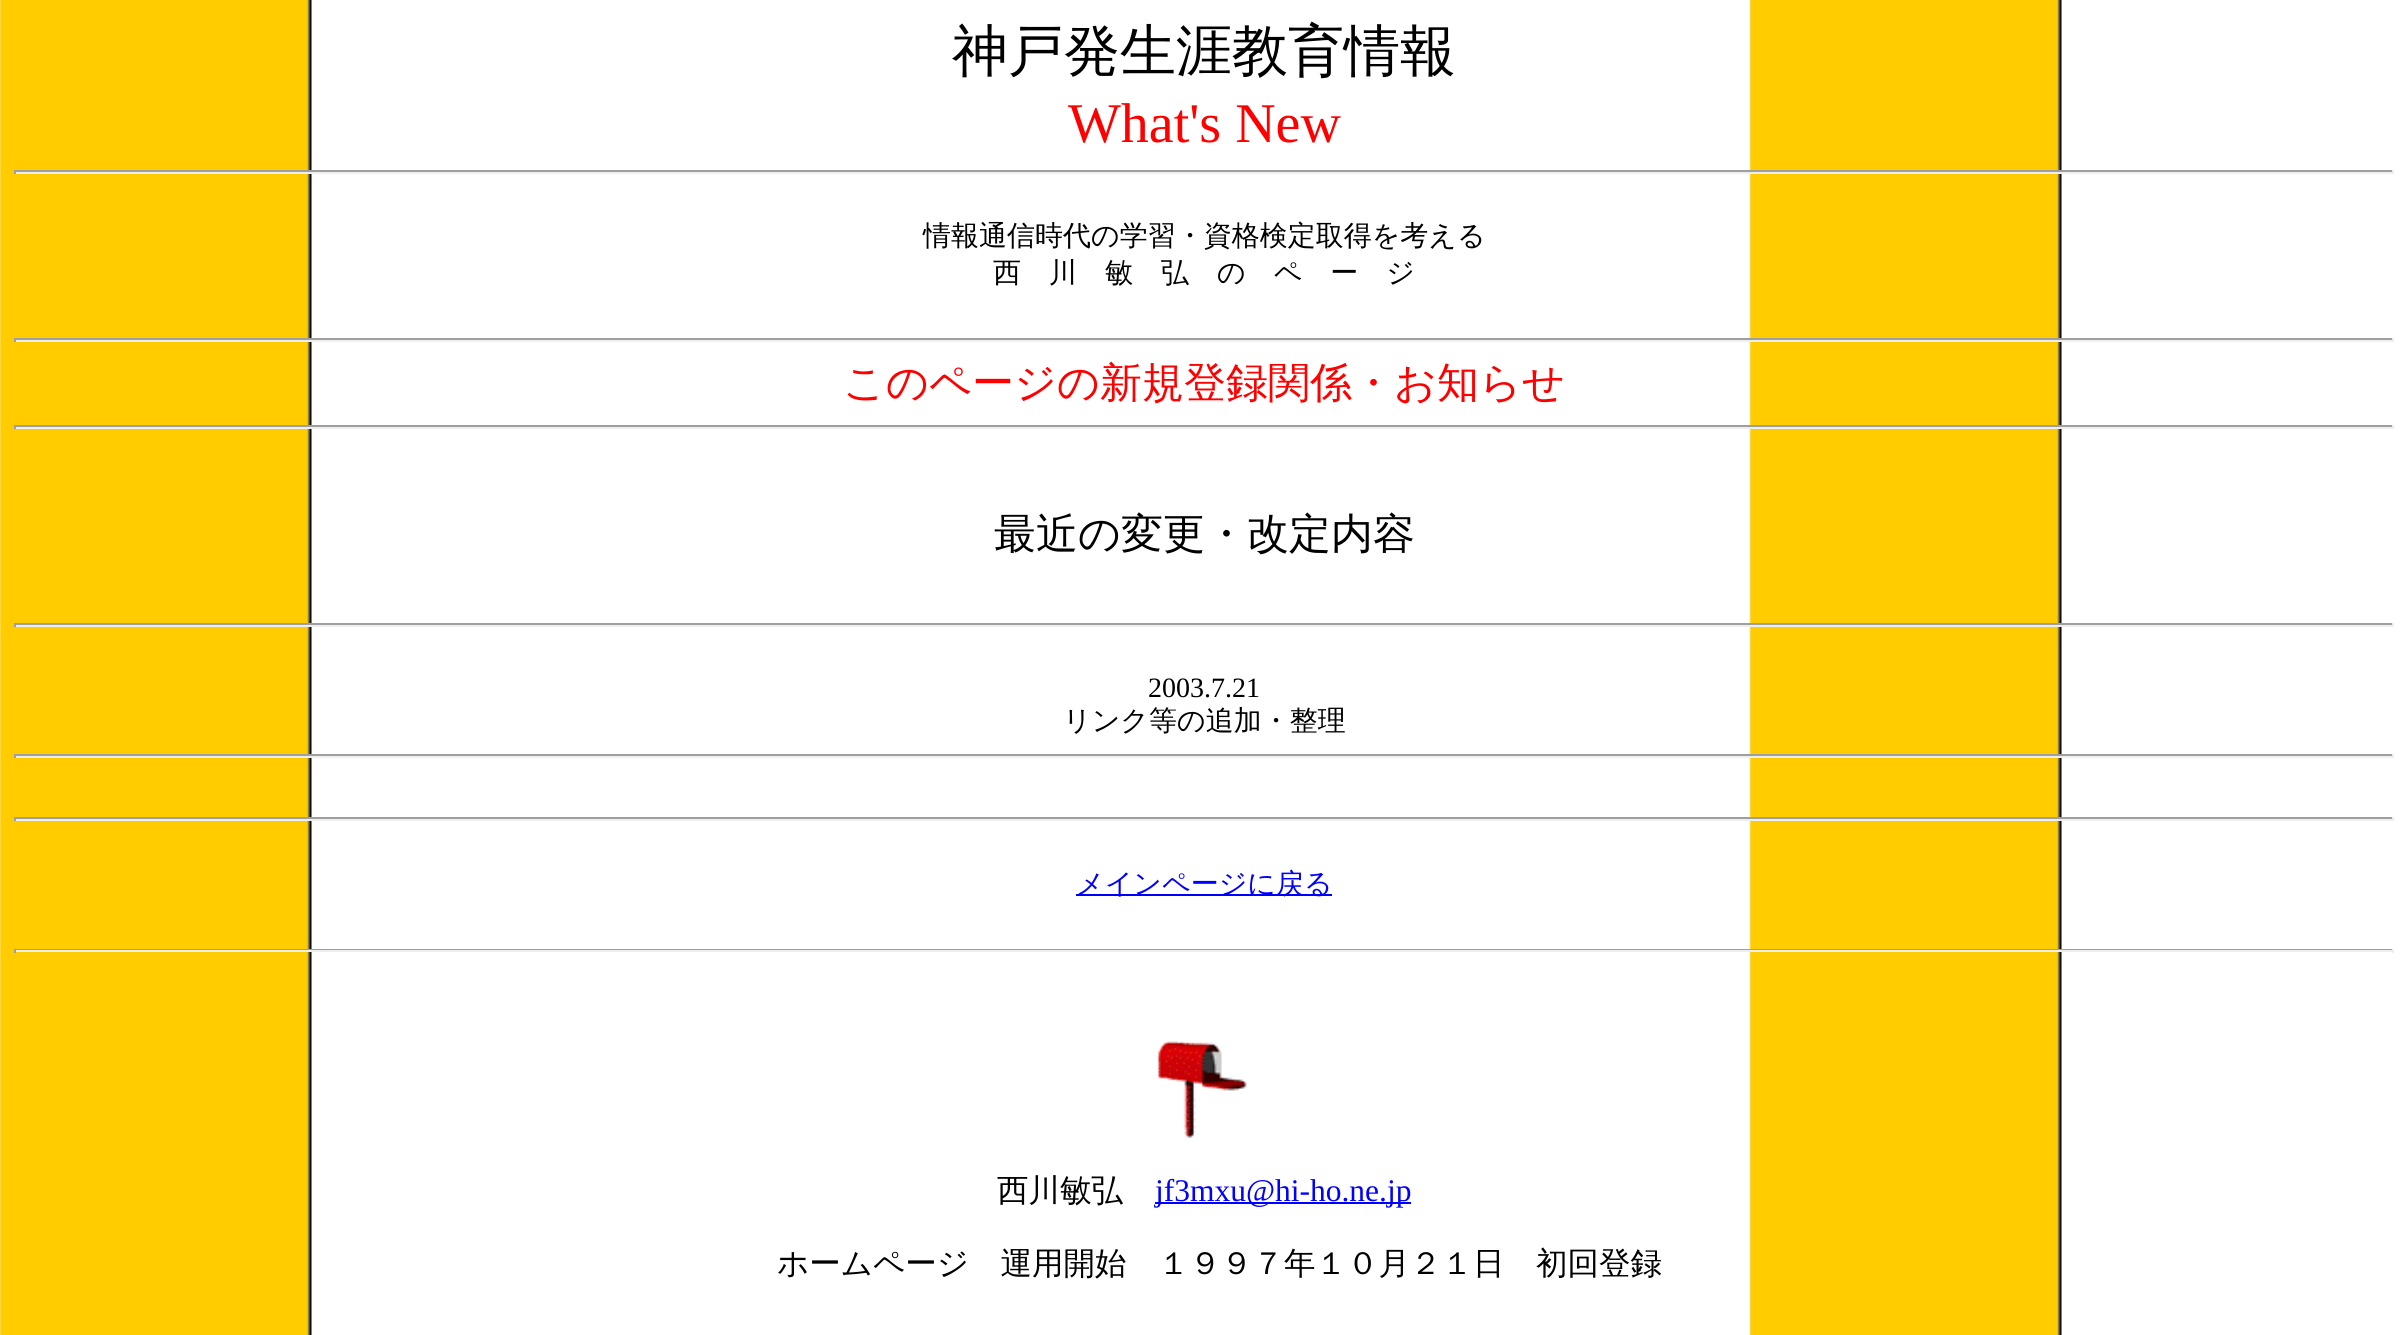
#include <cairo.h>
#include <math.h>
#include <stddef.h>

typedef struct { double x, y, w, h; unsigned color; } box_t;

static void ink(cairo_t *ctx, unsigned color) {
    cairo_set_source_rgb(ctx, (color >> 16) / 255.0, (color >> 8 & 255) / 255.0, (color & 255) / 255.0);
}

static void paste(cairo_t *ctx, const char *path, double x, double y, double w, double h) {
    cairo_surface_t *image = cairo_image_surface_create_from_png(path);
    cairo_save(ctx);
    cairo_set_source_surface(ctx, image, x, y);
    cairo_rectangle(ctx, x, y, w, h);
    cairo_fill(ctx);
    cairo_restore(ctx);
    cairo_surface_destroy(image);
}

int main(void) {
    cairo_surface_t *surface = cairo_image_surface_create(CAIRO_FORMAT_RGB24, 2407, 1335);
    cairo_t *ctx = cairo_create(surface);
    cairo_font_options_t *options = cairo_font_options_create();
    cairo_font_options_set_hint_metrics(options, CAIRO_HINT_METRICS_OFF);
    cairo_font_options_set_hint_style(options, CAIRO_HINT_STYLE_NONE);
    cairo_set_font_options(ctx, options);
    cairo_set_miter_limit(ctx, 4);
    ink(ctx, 0xFFFFFF);
    cairo_paint(ctx);
    paste(ctx, "media/1.png", 0, 0, 2062, 1335);
    cairo_select_font_face(ctx, "WenQuanYi Zen Hei Medium", CAIRO_FONT_SLANT_NORMAL, CAIRO_FONT_WEIGHT_NORMAL);
    cairo_set_font_size(ctx, 56);
    ink(ctx, 0x000000);
    cairo_move_to(ctx, 952, 70);
    cairo_show_text(ctx, "神戸発生涯教育情報");
    cairo_select_font_face(ctx, "Liberation Serif", CAIRO_FONT_SLANT_NORMAL, CAIRO_FONT_WEIGHT_NORMAL);
    ink(ctx, 0xFF0000);
    cairo_move_to(ctx, 1068, 142);
    cairo_show_text(ctx, "What's New");
    {
        static const box_t items[] = {
            {14, 170, 2380, 2, 0x9F9F9F},
            {2392, 170, 2, 4, 0xEEEEEE},
            {14, 172, 2380, 2, 0xEEEEEE},
            {14, 170, 2, 4, 0x9F9F9F},
        };
        for (size_t i = 0; i < sizeof items / sizeof *items; i++) {
            ink(ctx, items[i].color);
            cairo_rectangle(ctx, items[i].x, items[i].y, items[i].w, items[i].h);
            cairo_fill(ctx);
        }
    }
    cairo_select_font_face(ctx, "WenQuanYi Zen Hei Medium", CAIRO_FONT_SLANT_NORMAL, CAIRO_FONT_WEIGHT_NORMAL);
    cairo_set_font_size(ctx, 28);
    ink(ctx, 0x000000);
    cairo_move_to(ctx, 923, 245);
    cairo_show_text(ctx, "情報通信時代の学習・資格検定取得を考える");
    cairo_move_to(ctx, 993, 282);
    cairo_show_text(ctx, "西　川　敏　弘　の　ペ　ー　ジ");
    {
        static const box_t items[] = {
            {14, 338, 2380, 2, 0x9F9F9F},
            {2392, 338, 2, 4, 0xEEEEEE},
            {14, 340, 2380, 2, 0xEEEEEE},
            {14, 338, 2, 4, 0x9F9F9F},
        };
        for (size_t i = 0; i < sizeof items / sizeof *items; i++) {
            ink(ctx, items[i].color);
            cairo_rectangle(ctx, items[i].x, items[i].y, items[i].w, items[i].h);
            cairo_fill(ctx);
        }
    }
    cairo_set_font_size(ctx, 42);
    ink(ctx, 0xFF0000);
    cairo_move_to(ctx, 843, 397);
    cairo_show_text(ctx, "このページの新規登録関係・お知らせ");
    {
        static const box_t items[] = {
            {14, 425, 2380, 2, 0x9F9F9F},
            {2392, 425, 2, 4, 0xEEEEEE},
            {14, 427, 2380, 2, 0xEEEEEE},
            {14, 425, 2, 4, 0x9F9F9F},
        };
        for (size_t i = 0; i < sizeof items / sizeof *items; i++) {
            ink(ctx, items[i].color);
            cairo_rectangle(ctx, items[i].x, items[i].y, items[i].w, items[i].h);
            cairo_fill(ctx);
        }
    }
    ink(ctx, 0x000000);
    cairo_move_to(ctx, 994, 548);
    cairo_show_text(ctx, "最近の変更・改定内容");
    {
        static const box_t items[] = {
            {14, 623, 2380, 2, 0x9F9F9F},
            {2392, 623, 2, 4, 0xEEEEEE},
            {14, 625, 2380, 2, 0xEEEEEE},
            {14, 623, 2, 4, 0x9F9F9F},
        };
        for (size_t i = 0; i < sizeof items / sizeof *items; i++) {
            ink(ctx, items[i].color);
            cairo_rectangle(ctx, items[i].x, items[i].y, items[i].w, items[i].h);
            cairo_fill(ctx);
        }
    }
    cairo_select_font_face(ctx, "Liberation Serif", CAIRO_FONT_SLANT_NORMAL, CAIRO_FONT_WEIGHT_NORMAL);
    cairo_set_font_size(ctx, 28);
    ink(ctx, 0x000000);
    cairo_move_to(ctx, 1148, 697);
    cairo_show_text(ctx, "2003.7.21");
    cairo_select_font_face(ctx, "WenQuanYi Zen Hei Medium", CAIRO_FONT_SLANT_NORMAL, CAIRO_FONT_WEIGHT_NORMAL);
    cairo_move_to(ctx, 1063, 730);
    cairo_show_text(ctx, "リンク等の追加・整理");
    {
        static const box_t items[] = {
            {14, 754, 2380, 2, 0x9F9F9F},
            {2392, 754, 2, 4, 0xEEEEEE},
            {14, 756, 2380, 2, 0xEEEEEE},
            {14, 754, 2, 4, 0x9F9F9F},
            {14, 817, 2380, 2, 0x9F9F9F},
            {2392, 817, 2, 4, 0xEEEEEE},
            {14, 819, 2380, 2, 0xEEEEEE},
            {14, 817, 2, 4, 0x9F9F9F},
            {1076, 894, 256, 2, 0x0000FF},
        };
        for (size_t i = 0; i < sizeof items / sizeof *items; i++) {
            ink(ctx, items[i].color);
            cairo_rectangle(ctx, items[i].x, items[i].y, items[i].w, items[i].h);
            cairo_fill(ctx);
        }
    }
    cairo_move_to(ctx, 1076, 893);
    cairo_show_text(ctx, "メインページに戻る");
    {
        static const box_t items[] = {
            {14, 949, 2380, 1, 0x9F9F9F},
            {2392, 949, 2, 4, 0xEEEEEE},
            {14, 950, 2380, 2, 0xEEEEEE},
            {14, 949, 2, 4, 0x9F9F9F},
        };
        for (size_t i = 0; i < sizeof items / sizeof *items; i++) {
            ink(ctx, items[i].color);
            cairo_rectangle(ctx, items[i].x, items[i].y, items[i].w, items[i].h);
            cairo_fill(ctx);
        }
    }
    paste(ctx, "media/2.png", 1158, 1041, 89, 97);
    cairo_set_font_size(ctx, 31.5);
    ink(ctx, 0x000000);
    cairo_move_to(ctx, 997, 1201);
    cairo_show_text(ctx, "西川敏弘");
    ink(ctx, 0x0000FF);
    cairo_rectangle(ctx, 1155, 1202, 256, 2);
    cairo_fill(ctx);
    cairo_select_font_face(ctx, "Liberation Serif", CAIRO_FONT_SLANT_NORMAL, CAIRO_FONT_WEIGHT_NORMAL);
    cairo_move_to(ctx, 1155, 1201);
    cairo_show_text(ctx, "jf3mxu@hi-ho.ne.jp");
    cairo_select_font_face(ctx, "WenQuanYi Zen Hei Medium", CAIRO_FONT_SLANT_NORMAL, CAIRO_FONT_WEIGHT_NORMAL);
    ink(ctx, 0x000000);
    cairo_move_to(ctx, 777, 1274);
    cairo_show_text(ctx, "ホームページ　運用開始　１９９７年１０月２１日　初回登録");
    cairo_surface_write_to_png(surface, "image.png");
    cairo_font_options_destroy(options);
    cairo_destroy(ctx);
    cairo_surface_destroy(surface);
    return 0;
}
